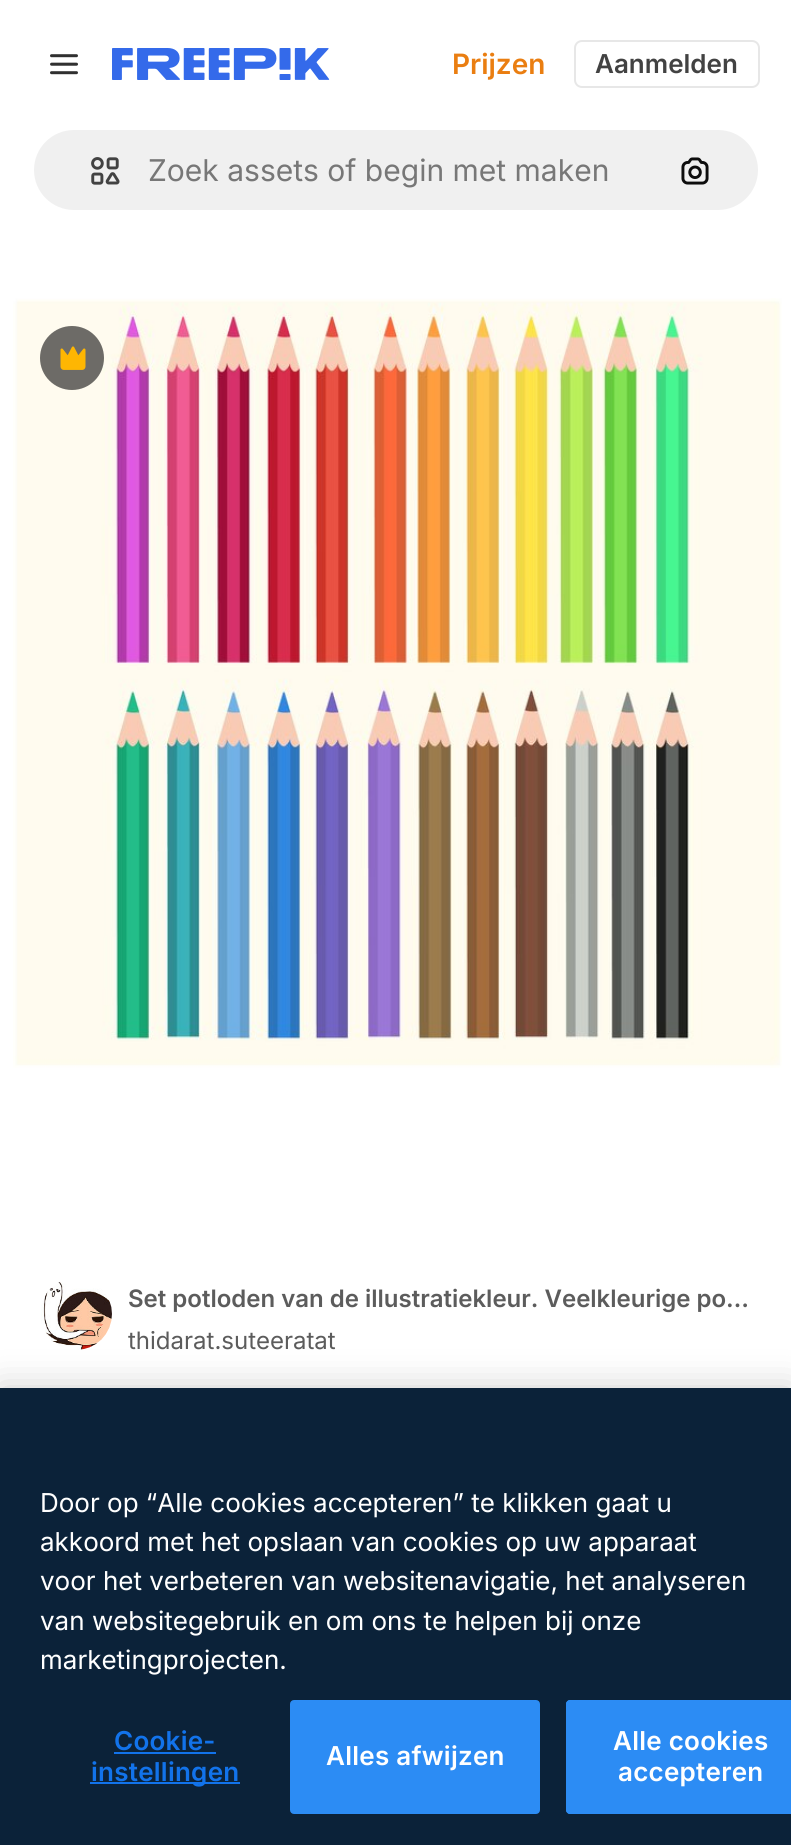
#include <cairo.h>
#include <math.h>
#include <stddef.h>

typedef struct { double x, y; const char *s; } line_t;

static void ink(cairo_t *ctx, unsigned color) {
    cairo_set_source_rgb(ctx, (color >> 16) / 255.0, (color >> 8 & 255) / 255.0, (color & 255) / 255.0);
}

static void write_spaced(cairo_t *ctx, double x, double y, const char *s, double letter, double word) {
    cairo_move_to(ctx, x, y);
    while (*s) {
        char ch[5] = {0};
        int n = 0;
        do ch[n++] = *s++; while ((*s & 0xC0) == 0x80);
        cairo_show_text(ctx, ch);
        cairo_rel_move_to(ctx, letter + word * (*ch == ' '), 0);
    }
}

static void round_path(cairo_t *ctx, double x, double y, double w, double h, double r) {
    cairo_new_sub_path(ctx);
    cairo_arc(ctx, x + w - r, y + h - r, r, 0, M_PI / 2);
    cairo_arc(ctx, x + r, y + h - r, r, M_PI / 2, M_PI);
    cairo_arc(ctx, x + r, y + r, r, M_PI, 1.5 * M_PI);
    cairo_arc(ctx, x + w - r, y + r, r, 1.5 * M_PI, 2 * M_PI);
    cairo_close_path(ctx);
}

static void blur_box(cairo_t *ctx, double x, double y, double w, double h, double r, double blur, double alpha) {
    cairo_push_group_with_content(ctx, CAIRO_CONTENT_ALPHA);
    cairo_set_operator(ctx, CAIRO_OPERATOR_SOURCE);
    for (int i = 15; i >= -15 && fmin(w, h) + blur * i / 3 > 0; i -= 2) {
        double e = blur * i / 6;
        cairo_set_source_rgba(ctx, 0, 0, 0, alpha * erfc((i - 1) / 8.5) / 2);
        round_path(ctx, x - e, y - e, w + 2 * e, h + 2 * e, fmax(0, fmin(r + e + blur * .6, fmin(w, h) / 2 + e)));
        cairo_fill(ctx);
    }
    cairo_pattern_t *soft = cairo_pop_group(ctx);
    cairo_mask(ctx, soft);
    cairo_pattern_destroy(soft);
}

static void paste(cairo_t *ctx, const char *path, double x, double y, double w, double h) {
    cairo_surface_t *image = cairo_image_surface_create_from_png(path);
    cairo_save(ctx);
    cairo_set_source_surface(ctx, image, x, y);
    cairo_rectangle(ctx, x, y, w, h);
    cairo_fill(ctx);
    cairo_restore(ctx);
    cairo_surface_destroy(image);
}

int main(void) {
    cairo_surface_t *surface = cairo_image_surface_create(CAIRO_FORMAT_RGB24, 791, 1845);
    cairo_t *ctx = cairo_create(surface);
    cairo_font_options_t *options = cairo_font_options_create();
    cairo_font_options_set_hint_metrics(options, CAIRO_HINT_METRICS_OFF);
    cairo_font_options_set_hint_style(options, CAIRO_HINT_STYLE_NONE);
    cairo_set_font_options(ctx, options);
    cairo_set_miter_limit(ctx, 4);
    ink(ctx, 0xFFFFFF);
    cairo_paint(ctx);
    paste(ctx, "media/1.png", 50, 54, 28, 21);
    paste(ctx, "media/2.png", 112, 48, 218, 32);
    cairo_select_font_face(ctx, "Inter SemiBold", CAIRO_FONT_SLANT_NORMAL, CAIRO_FONT_WEIGHT_NORMAL);
    cairo_set_font_size(ctx, 28);
    ink(ctx, 0xEA7E11);
    cairo_move_to(ctx, 452, 74);
    cairo_show_text(ctx, "Prijzen");
    round_path(ctx, 575, 41, 184, 46, 7);
    ink(ctx, 0xE7E7E7);
    cairo_stroke(ctx);
    cairo_set_font_size(ctx, 26);
    ink(ctx, 0x424242);
    cairo_move_to(ctx, 595, 73);
    cairo_show_text(ctx, "Aanmelden");
    ink(ctx, 0xF0F0F0);
    round_path(ctx, 33, 129, 726, 82, 41);
    cairo_fill_preserve(ctx);
    ink(ctx, 0xFFFFFF);
    cairo_stroke(ctx);
    paste(ctx, "media/3.png", 91, 157, 29, 28);
    cairo_select_font_face(ctx, "Inter", CAIRO_FONT_SLANT_NORMAL, CAIRO_FONT_WEIGHT_NORMAL);
    cairo_set_font_size(ctx, 30);
    ink(ctx, 0x777777);
    cairo_move_to(ctx, 148, 181);
    cairo_show_text(ctx, "Zoek assets of begin met maken");
    paste(ctx, "media/4.png", 681, 157, 28, 28);
    paste(ctx, "media/5.png", 13, 298, 769, 770);
    cairo_set_source_rgba(ctx, 0.051, 0.051, 0.051, 0.6);
    cairo_arc(ctx, 72, 358, 32, 0, 2 * M_PI);
    cairo_fill(ctx);
    paste(ctx, "media/6.png", 60, 346, 26, 24);
    paste(ctx, "media/7.png", 41, 1282, 71, 68);
    cairo_select_font_face(ctx, "Inter SemiBold", CAIRO_FONT_SLANT_NORMAL, CAIRO_FONT_WEIGHT_NORMAL);
    cairo_set_font_size(ctx, 24);
    ink(ctx, 0x5C5C5C);
    cairo_move_to(ctx, 128, 1307);
    cairo_show_text(ctx, "Set potloden van de illustratiekleur. Veelkleurige po…");
    cairo_select_font_face(ctx, "Inter", CAIRO_FONT_SLANT_NORMAL, CAIRO_FONT_WEIGHT_NORMAL);
    cairo_move_to(ctx, 128, 1349);
    cairo_show_text(ctx, "thidarat.suteeratat");
    ink(ctx, 0x000000);
    blur_box(ctx, 0, 1388, 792, 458, 0, 18, 0.2);
    ink(ctx, 0x0B2239);
    cairo_rectangle(ctx, 0, 1388, 791, 457);
    cairo_fill(ctx);
    cairo_set_font_size(ctx, 26);
    ink(ctx, 0xFFFFFF);
    {
        static const line_t items[] = {
            {40, 1512, "Door op “Alle cookies accepteren” te klikken gaat u"},
            {40, 1551, "akkoord met het opslaan van cookies op uw apparaat"},
            {40, 1590, "voor het verbeteren van websitenavigatie, het analyseren"},
            {40, 1630, "van websitegebruik en om ons te helpen bij onze"},
            {40, 1669, "marketingprojecten."},
        };
        for (size_t i = 0; i < sizeof items / sizeof *items; i++) {
            cairo_move_to(ctx, items[i].x, items[i].y);
            cairo_show_text(ctx, items[i].s);
        }
    }
    cairo_select_font_face(ctx, "Inter SemiBold", CAIRO_FONT_SLANT_NORMAL, CAIRO_FONT_WEIGHT_NORMAL);
    ink(ctx, 0x1273EB);
    write_spaced(ctx, 114, 1750, "Cookie-", 0.25, 0);
    cairo_rectangle(ctx, 114, 1752, 102, 2);
    cairo_fill(ctx);
    cairo_rectangle(ctx, 90, 1782, 150, 2);
    cairo_fill(ctx);
    write_spaced(ctx, 91, 1781, "instellingen", 0.25, 0);
    ink(ctx, 0x2C8CF4);
    round_path(ctx, 291, 1701, 248, 112, 3);
    cairo_fill_preserve(ctx);
    cairo_stroke(ctx);
    ink(ctx, 0xFFFFFF);
    write_spaced(ctx, 326, 1765, "Alles afwijzen", 0.25, 0);
    ink(ctx, 0x2C8CF4);
    cairo_new_path(ctx);
    cairo_move_to(ctx, 570, 1700);
    cairo_line_to(ctx, 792, 1700);
    cairo_line_to(ctx, 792, 1814);
    cairo_line_to(ctx, 570, 1814);
    cairo_curve_to(ctx, 568, 1814, 566, 1812, 566, 1810);
    cairo_line_to(ctx, 566, 1704);
    cairo_curve_to(ctx, 566, 1702, 568, 1700, 570, 1700);
    cairo_close_path(ctx);
    cairo_fill(ctx);
    round_path(ctx, 567, 1701, 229, 112, 3);
    cairo_stroke(ctx);
    ink(ctx, 0xFFFFFF);
    write_spaced(ctx, 613, 1750, "Alle cookies", 0.25, 0);
    write_spaced(ctx, 618, 1781, "accepteren", 0.25, 0);
    cairo_surface_write_to_png(surface, "image.png");
    cairo_font_options_destroy(options);
    cairo_destroy(ctx);
    cairo_surface_destroy(surface);
    return 0;
}
